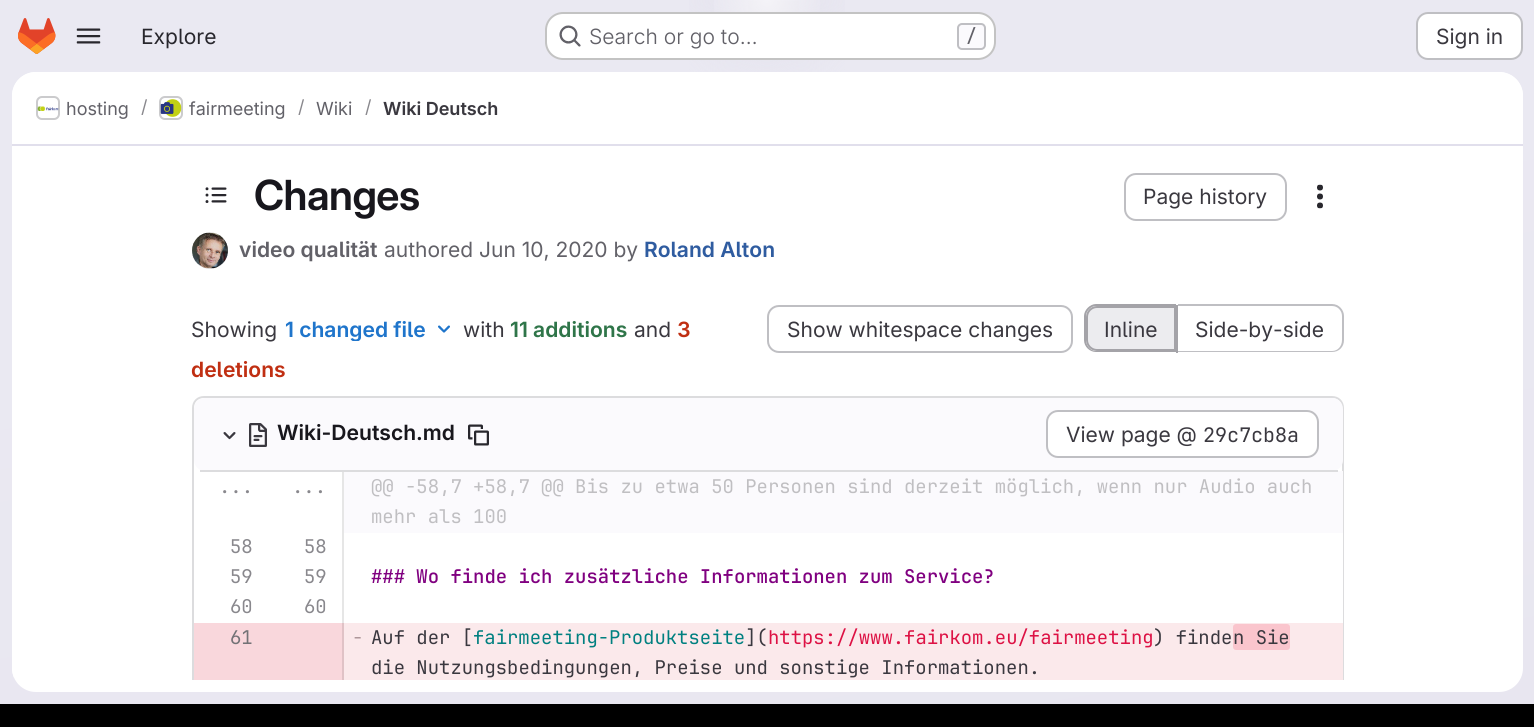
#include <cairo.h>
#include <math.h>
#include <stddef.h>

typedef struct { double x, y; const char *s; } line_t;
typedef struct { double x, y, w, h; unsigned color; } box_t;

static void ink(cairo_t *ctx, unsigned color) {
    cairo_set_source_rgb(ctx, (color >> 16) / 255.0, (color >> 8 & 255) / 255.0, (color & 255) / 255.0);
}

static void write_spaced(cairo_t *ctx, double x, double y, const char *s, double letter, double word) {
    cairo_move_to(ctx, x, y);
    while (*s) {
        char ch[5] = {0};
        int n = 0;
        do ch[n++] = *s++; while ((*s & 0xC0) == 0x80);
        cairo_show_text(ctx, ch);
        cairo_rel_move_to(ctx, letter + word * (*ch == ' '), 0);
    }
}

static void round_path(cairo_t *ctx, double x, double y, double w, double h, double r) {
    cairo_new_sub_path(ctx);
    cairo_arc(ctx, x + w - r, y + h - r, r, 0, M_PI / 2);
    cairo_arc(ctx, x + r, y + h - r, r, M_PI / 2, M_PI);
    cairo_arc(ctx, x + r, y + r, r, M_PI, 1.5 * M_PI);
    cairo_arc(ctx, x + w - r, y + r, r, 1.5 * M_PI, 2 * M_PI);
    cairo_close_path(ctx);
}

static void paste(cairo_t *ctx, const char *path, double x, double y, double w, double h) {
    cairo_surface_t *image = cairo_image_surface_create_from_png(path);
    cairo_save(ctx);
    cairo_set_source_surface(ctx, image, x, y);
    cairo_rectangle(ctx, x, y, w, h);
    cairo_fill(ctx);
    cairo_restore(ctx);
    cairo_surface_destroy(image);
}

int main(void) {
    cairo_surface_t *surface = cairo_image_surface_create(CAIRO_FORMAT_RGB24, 1534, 727);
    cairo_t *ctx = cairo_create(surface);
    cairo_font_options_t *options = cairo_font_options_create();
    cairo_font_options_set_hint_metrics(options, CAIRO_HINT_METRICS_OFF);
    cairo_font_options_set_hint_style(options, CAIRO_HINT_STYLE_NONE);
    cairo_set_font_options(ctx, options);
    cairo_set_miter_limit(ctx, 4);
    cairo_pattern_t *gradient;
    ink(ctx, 0xFFFFFF);
    cairo_paint(ctx);
    gradient = cairo_pattern_create_linear(853, 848, 682, -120);
    cairo_pattern_add_color_stop_rgba(gradient, 0, 0.91, 0.902, 0.941, 1);
    cairo_pattern_add_color_stop_rgba(gradient, 0.7, 0.918, 0.914, 0.949, 1);
    cairo_set_source(ctx, gradient);
    cairo_pattern_destroy(gradient);
    cairo_rectangle(ctx, 0, 0, 1534, 704);
    cairo_fill(ctx);
    gradient = cairo_pattern_create_radial(0, 0, 0, 0, 0, 1);
    cairo_pattern_set_matrix(gradient, &(cairo_matrix_t){1.0 / 767, 0, 0, 1.0 / 728, -1.0 * 767 / 767, -1.0 * 0 / 728});
    cairo_pattern_add_color_stop_rgba(gradient, 0, 0.894, 0.886, 0.929, 1);
    cairo_pattern_add_color_stop_rgba(gradient, 0.14, 0.894, 0.886, 0.929, 0);
    cairo_set_source(ctx, gradient);
    cairo_pattern_destroy(gradient);
    cairo_rectangle(ctx, 689, 0, 156, 72);
    cairo_fill(ctx);
    gradient = cairo_pattern_create_radial(0, 0, 0, 0, 0, 1);
    cairo_pattern_set_matrix(gradient, &(cairo_matrix_t){1.0 / 767, 0, 0, 1.0 / 728, -1.0 * 767 / 767, -1.0 * 0 / 728});
    cairo_pattern_add_color_stop_rgba(gradient, 0, 0.894, 0.886, 0.925, 1);
    cairo_pattern_add_color_stop_rgba(gradient, 0.1, 0.894, 0.886, 0.925, 0);
    cairo_set_source(ctx, gradient);
    cairo_pattern_destroy(gradient);
    cairo_rectangle(ctx, 748, 1, 51, 29);
    cairo_fill(ctx);
    gradient = cairo_pattern_create_radial(767, 0, 0, 767, 0, 1057);
    cairo_pattern_add_color_stop_rgba(gradient, 0, 1, 1, 1, 0.6);
    cairo_pattern_add_color_stop_rgba(gradient, 0.06, 1, 1, 1, 0);
    cairo_set_source(ctx, gradient);
    cairo_pattern_destroy(gradient);
    cairo_rectangle(ctx, 714, 0, 106, 53);
    cairo_fill(ctx);
    paste(ctx, "media/1.png", 18, 18, 38, 36);
    paste(ctx, "media/2.png", 76, 28, 25, 16);
    cairo_select_font_face(ctx, "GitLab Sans", CAIRO_FONT_SLANT_NORMAL, CAIRO_FONT_WEIGHT_NORMAL);
    cairo_set_font_size(ctx, 21);
    ink(ctx, 0x28272D);
    cairo_move_to(ctx, 141, 44);
    cairo_show_text(ctx, "Explore");
    ink(ctx, 0xFFFFFF);
    round_path(ctx, 545, 12, 451, 48, 18);
    cairo_fill(ctx);
    round_path(ctx, 546, 13, 449, 46, 17);
    cairo_set_source_rgba(ctx, 0.02, 0.02, 0.024, 0.24);
    cairo_stroke(ctx);
    paste(ctx, "media/3.png", 559, 25, 22, 22);
    cairo_select_font_face(ctx, "GitLab Sans Light", CAIRO_FONT_SLANT_NORMAL, CAIRO_FONT_WEIGHT_NORMAL);
    ink(ctx, 0x626168);
    cairo_move_to(ctx, 589, 44);
    cairo_show_text(ctx, "Search or go to…");
    ink(ctx, 0xFBFAFD);
    round_path(ctx, 958, 24, 27, 25, 4);
    cairo_fill_preserve(ctx);
    ink(ctx, 0xBFBFC3);
    cairo_stroke(ctx);
    cairo_select_font_face(ctx, "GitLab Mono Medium", CAIRO_FONT_SLANT_NORMAL, CAIRO_FONT_WEIGHT_NORMAL);
    cairo_set_font_size(ctx, 18);
    ink(ctx, 0x626168);
    cairo_move_to(ctx, 966, 42);
    cairo_show_text(ctx, "/");
    ink(ctx, 0xFFFFFF);
    round_path(ctx, 1417, 13, 105, 46, 11);
    cairo_fill_preserve(ctx);
    ink(ctx, 0xBFBFC3);
    cairo_stroke(ctx);
    cairo_select_font_face(ctx, "GitLab Sans", CAIRO_FONT_SLANT_NORMAL, CAIRO_FONT_WEIGHT_NORMAL);
    cairo_set_font_size(ctx, 21);
    ink(ctx, 0x3A383F);
    cairo_move_to(ctx, 1436, 44);
    cairo_show_text(ctx, "Sign in");
    ink(ctx, 0xFFFFFF);
    round_path(ctx, 12, 72, 1511, 620, 24);
    cairo_fill(ctx);
    cairo_new_path(ctx);
    cairo_move_to(ctx, 36, 72);
    cairo_line_to(ctx, 1499, 72);
    cairo_curve_to(ctx, 1512.5, 72, 1523, 82.5, 1523, 96);
    cairo_line_to(ctx, 1523, 146);
    cairo_line_to(ctx, 12, 146);
    cairo_line_to(ctx, 12, 96);
    cairo_curve_to(ctx, 12, 82.5, 22.5, 72, 36, 72);
    cairo_close_path(ctx);
    cairo_fill(ctx);
    ink(ctx, 0xE1DFEC);
    cairo_rectangle(ctx, 12, 144, 1511, 2);
    cairo_fill(ctx);
    round_path(ctx, 37, 97, 22, 22, 5);
    ink(ctx, 0xDCDCDE);
    cairo_stroke(ctx);
    paste(ctx, "media/4.png", 37, 106, 22, 5);
    round_path(ctx, 37, 97, 22, 22, 5);
    cairo_set_source_rgba(ctx, 0.02, 0.02, 0.024, 0.08);
    cairo_stroke(ctx);
    cairo_set_font_size(ctx, 18);
    ink(ctx, 0x626168);
    cairo_move_to(ctx, 66, 115);
    cairo_show_text(ctx, "hosting");
    ink(ctx, 0x89888D);
    cairo_move_to(ctx, 141, 113);
    cairo_show_text(ctx, "/");
    round_path(ctx, 160, 97, 22, 22, 5);
    ink(ctx, 0xDCDCDE);
    cairo_stroke(ctx);
    paste(ctx, "media/5.png", 160, 99, 22, 18);
    round_path(ctx, 160, 97, 22, 22, 5);
    cairo_set_source_rgba(ctx, 0.02, 0.02, 0.024, 0.08);
    cairo_stroke(ctx);
    ink(ctx, 0x626168);
    cairo_move_to(ctx, 189, 115);
    cairo_show_text(ctx, "fairmeeting");
    ink(ctx, 0x89888D);
    cairo_move_to(ctx, 298, 113);
    cairo_show_text(ctx, "/");
    ink(ctx, 0x626168);
    cairo_move_to(ctx, 316, 115);
    cairo_show_text(ctx, "Wiki");
    ink(ctx, 0x89888D);
    cairo_move_to(ctx, 365, 113);
    cairo_show_text(ctx, "/");
    cairo_select_font_face(ctx, "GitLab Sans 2 SemiBold", CAIRO_FONT_SLANT_NORMAL, CAIRO_FONT_WEIGHT_NORMAL);
    ink(ctx, 0x3A383F);
    cairo_move_to(ctx, 383, 115);
    cairo_show_text(ctx, "Wiki Deutsch");
    cairo_save(ctx);
    round_path(ctx, 12, 72, 1511, 620, 24);
    cairo_clip(ctx);
    ink(ctx, 0xFFFFFF);
    cairo_rectangle(ctx, 12, 146, 2, 532);
    cairo_fill(ctx);
    cairo_restore(ctx);
    paste(ctx, "media/6.png", 205, 187, 22, 16);
    cairo_select_font_face(ctx, "GitLab Sans SemiBold", CAIRO_FONT_SLANT_NORMAL, CAIRO_FONT_WEIGHT_NORMAL);
    cairo_set_font_size(ctx, 41.5);
    ink(ctx, 0x18171D);
    write_spaced(ctx, 254, 210, "Changes", -0.5, 0);
    round_path(ctx, 1125, 174, 161, 46, 11);
    ink(ctx, 0xBFBFC3);
    cairo_stroke(ctx);
    cairo_select_font_face(ctx, "GitLab Sans", CAIRO_FONT_SLANT_NORMAL, CAIRO_FONT_WEIGHT_NORMAL);
    cairo_set_font_size(ctx, 21);
    ink(ctx, 0x3A383F);
    cairo_move_to(ctx, 1143, 204);
    cairo_show_text(ctx, "Page history");
    paste(ctx, "media/7.png", 1317, 184, 6, 25);
    cairo_arc(ctx, 210, 251, 17, 0, 2 * M_PI);
    ink(ctx, 0xE8E7E9);
    cairo_stroke(ctx);
    paste(ctx, "media/8.png", 192, 232, 36, 37);
    cairo_select_font_face(ctx, "GitLab Sans 2 SemiBold", CAIRO_FONT_SLANT_NORMAL, CAIRO_FONT_WEIGHT_NORMAL);
    ink(ctx, 0x626168);
    cairo_move_to(ctx, 239, 257);
    cairo_show_text(ctx, "video qualität");
    cairo_select_font_face(ctx, "GitLab Sans", CAIRO_FONT_SLANT_NORMAL, CAIRO_FONT_WEIGHT_NORMAL);
    cairo_move_to(ctx, 384, 257);
    cairo_show_text(ctx, "authored Jun 10, 2020 by");
    cairo_select_font_face(ctx, "GitLab Sans 2 SemiBold", CAIRO_FONT_SLANT_NORMAL, CAIRO_FONT_WEIGHT_NORMAL);
    ink(ctx, 0x2F5CA0);
    cairo_move_to(ctx, 644, 257);
    cairo_show_text(ctx, "Roland Alton");
    cairo_select_font_face(ctx, "GitLab Sans", CAIRO_FONT_SLANT_NORMAL, CAIRO_FONT_WEIGHT_NORMAL);
    ink(ctx, 0x3A383F);
    cairo_move_to(ctx, 191, 337);
    cairo_show_text(ctx, "Showing");
    cairo_save(ctx);
    cairo_rectangle(ctx, 285, 317, 141, 24);
    cairo_clip(ctx);
    cairo_select_font_face(ctx, "GitLab Sans 2 SemiBold", CAIRO_FONT_SLANT_NORMAL, CAIRO_FONT_WEIGHT_NORMAL);
    ink(ctx, 0x1F75CB);
    cairo_move_to(ctx, 285, 337);
    cairo_show_text(ctx, "1 changed file");
    cairo_restore(ctx);
    paste(ctx, "media/9.png", 438, 325, 12, 8);
    cairo_move_to(ctx, 463, 337);
    cairo_show_text(ctx, "with");
    cairo_select_font_face(ctx, "GitLab Sans 2 SemiBold", CAIRO_FONT_SLANT_NORMAL, CAIRO_FONT_WEIGHT_NORMAL);
    ink(ctx, 0x2F7549);
    cairo_move_to(ctx, 510, 337);
    cairo_show_text(ctx, "11 additions");
    cairo_select_font_face(ctx, "GitLab Sans", CAIRO_FONT_SLANT_NORMAL, CAIRO_FONT_WEIGHT_NORMAL);
    ink(ctx, 0x3A383F);
    cairo_move_to(ctx, 634, 337);
    cairo_show_text(ctx, "and");
    cairo_select_font_face(ctx, "GitLab Sans 2 SemiBold", CAIRO_FONT_SLANT_NORMAL, CAIRO_FONT_WEIGHT_NORMAL);
    ink(ctx, 0xC02F12);
    cairo_move_to(ctx, 677, 337);
    cairo_show_text(ctx, "3");
    cairo_move_to(ctx, 191, 377);
    cairo_show_text(ctx, "deletions");
    round_path(ctx, 768, 306, 304, 46, 11);
    ink(ctx, 0xBFBFC3);
    cairo_stroke(ctx);
    cairo_select_font_face(ctx, "GitLab Sans", CAIRO_FONT_SLANT_NORMAL, CAIRO_FONT_WEIGHT_NORMAL);
    ink(ctx, 0x3A383F);
    cairo_move_to(ctx, 787, 337);
    cairo_show_text(ctx, "Show whitespace changes");
    ink(ctx, 0xECECEF);
    cairo_new_path(ctx);
    cairo_move_to(ctx, 1097, 307);
    cairo_line_to(ctx, 1175, 307);
    cairo_line_to(ctx, 1175, 350);
    cairo_line_to(ctx, 1097, 350);
    cairo_curve_to(ctx, 1091.5, 350, 1087, 345.5, 1087, 340);
    cairo_line_to(ctx, 1087, 317);
    cairo_curve_to(ctx, 1087, 311.5, 1091.5, 307, 1097, 307);
    cairo_close_path(ctx);
    cairo_fill_preserve(ctx);
    ink(ctx, 0xA4A3A8);
    cairo_stroke(ctx);
    cairo_set_fill_rule(ctx, CAIRO_FILL_RULE_EVEN_ODD);
    cairo_new_path(ctx);
    cairo_move_to(ctx, 1096, 304);
    cairo_line_to(ctx, 1176, 304);
    cairo_line_to(ctx, 1176, 352);
    cairo_line_to(ctx, 1096, 352);
    cairo_curve_to(ctx, 1090, 352, 1084, 347, 1084, 340);
    cairo_line_to(ctx, 1084, 316);
    cairo_curve_to(ctx, 1084, 310, 1090, 304, 1096, 304);
    cairo_close_path(ctx);
    cairo_move_to(ctx, 1096, 306);
    cairo_line_to(ctx, 1176, 306);
    cairo_line_to(ctx, 1176, 351);
    cairo_line_to(ctx, 1096, 351);
    cairo_curve_to(ctx, 1091, 351, 1086, 346, 1086, 340);
    cairo_line_to(ctx, 1086, 316);
    cairo_curve_to(ctx, 1086, 311, 1091, 306, 1096, 306);
    cairo_close_path(ctx);
    cairo_fill(ctx);
    ink(ctx, 0x3A383F);
    cairo_move_to(ctx, 1104, 337);
    cairo_show_text(ctx, "Inline");
    ink(ctx, 0xBFBFC3);
    cairo_new_path(ctx);
    cairo_move_to(ctx, 1178, 304);
    cairo_line_to(ctx, 1332, 304);
    cairo_curve_to(ctx, 1339, 304, 1344, 310, 1344, 316);
    cairo_line_to(ctx, 1344, 340);
    cairo_curve_to(ctx, 1344, 347, 1339, 352, 1332, 352);
    cairo_line_to(ctx, 1178, 352);
    cairo_close_path(ctx);
    cairo_move_to(ctx, 1178, 306);
    cairo_line_to(ctx, 1332, 306);
    cairo_curve_to(ctx, 1338, 306, 1342, 311, 1342, 316);
    cairo_line_to(ctx, 1342, 340);
    cairo_curve_to(ctx, 1342, 346, 1338, 351, 1332, 351);
    cairo_line_to(ctx, 1178, 351);
    cairo_close_path(ctx);
    cairo_fill(ctx);
    ink(ctx, 0xA4A3A8);
    cairo_rectangle(ctx, 1176, 305, 2, 48);
    cairo_fill(ctx);
    ink(ctx, 0x3A383F);
    cairo_move_to(ctx, 1195, 337);
    cairo_show_text(ctx, "Side-by-side");
    cairo_save(ctx);
    cairo_set_fill_rule(ctx, CAIRO_FILL_RULE_WINDING);
    cairo_rectangle(ctx, 192, 146, 1152, 534);
    cairo_clip(ctx);
    ink(ctx, 0xDCDCDE);
    cairo_new_path(ctx);
    cairo_move_to(ctx, 204, 396);
    cairo_curve_to(ctx, 197, 396, 192, 401, 192, 408);
    cairo_line_to(ctx, 192, 692);
    cairo_line_to(ctx, 194, 692);
    cairo_line_to(ctx, 194, 408);
    cairo_curve_to(ctx, 194, 402, 198, 398, 204, 398);
    cairo_line_to(ctx, 1332, 398);
    cairo_curve_to(ctx, 1338, 398, 1342, 402, 1342, 408);
    cairo_line_to(ctx, 1342, 692);
    cairo_line_to(ctx, 1344, 692);
    cairo_line_to(ctx, 1344, 408);
    cairo_curve_to(ctx, 1344, 401, 1339, 396, 1332, 396);
    cairo_close_path(ctx);
    cairo_fill(ctx);
    cairo_restore(ctx);
    ink(ctx, 0xFBFAFD);
    round_path(ctx, 194, 398, 1149, 73, 11);
    cairo_fill(ctx);
    {
        static const box_t items[] = {
            {342, 471, 2, 152, 0xE6E6E6},
            {1342, 471, 1, 152, 0xFFFFFF},
            {344, 471, 999, 62, 0xFBFAFD},
            {200, 470, 1138, 2, 0xDCDCDE},
        };
        for (size_t i = 0; i < sizeof items / sizeof *items; i++) {
            ink(ctx, items[i].color);
            cairo_rectangle(ctx, items[i].x, items[i].y, items[i].w, items[i].h);
            cairo_fill(ctx);
        }
    }
    paste(ctx, "media/10.png", 223, 432, 13, 8);
    paste(ctx, "media/11.png", 249, 423, 18, 24);
    cairo_select_font_face(ctx, "GitLab Sans 2 SemiBold", CAIRO_FONT_SLANT_NORMAL, CAIRO_FONT_WEIGHT_NORMAL);
    ink(ctx, 0x18171D);
    cairo_move_to(ctx, 277, 440);
    cairo_show_text(ctx, "Wiki-Deutsch.md");
    paste(ctx, "media/12.png", 468, 424, 21, 22);
    ink(ctx, 0xFFFFFF);
    round_path(ctx, 1047, 411, 271, 46, 11);
    cairo_fill_preserve(ctx);
    ink(ctx, 0xBFBFC3);
    cairo_stroke(ctx);
    cairo_select_font_face(ctx, "GitLab Sans", CAIRO_FONT_SLANT_NORMAL, CAIRO_FONT_WEIGHT_NORMAL);
    ink(ctx, 0x3A383F);
    cairo_move_to(ctx, 1066, 442);
    cairo_show_text(ctx, "View page @");
    cairo_select_font_face(ctx, "GitLab Mono", CAIRO_FONT_SLANT_NORMAL, CAIRO_FONT_WEIGHT_NORMAL);
    cairo_set_font_size(ctx, 20);
    cairo_move_to(ctx, 1203, 442);
    cairo_show_text(ctx, "29c7cb8a");
    cairo_set_font_size(ctx, 18.9);
    ink(ctx, 0x89888D);
    cairo_move_to(ctx, 219, 493);
    cairo_show_text(ctx, "...");
    cairo_move_to(ctx, 292, 493);
    cairo_show_text(ctx, "...");
    ink(ctx, 0xC0BFC2);
    cairo_move_to(ctx, 371, 493);
    cairo_show_text(ctx, "@@ -58,7 +58,7 @@ Bis zu etwa 50 Personen sind derzeit möglich, wenn nur Audio auch");
    cairo_move_to(ctx, 371, 523);
    cairo_show_text(ctx, "mehr als 100");
    ink(ctx, 0x89888D);
    {
        static const line_t items[] = {
            {230, 553, "58"},
            {304, 553, "58"},
            {230, 583, "59"},
            {304, 583, "59"},
        };
        for (size_t i = 0; i < sizeof items / sizeof *items; i++) {
            cairo_move_to(ctx, items[i].x, items[i].y);
            cairo_show_text(ctx, items[i].s);
        }
    }
    cairo_select_font_face(ctx, "GitLab Mono SemiBold", CAIRO_FONT_SLANT_NORMAL, CAIRO_FONT_WEIGHT_NORMAL);
    ink(ctx, 0x800080);
    cairo_move_to(ctx, 371, 583);
    cairo_show_text(ctx, "### Wo finde ich zusätzliche Informationen zum Service?");
    cairo_select_font_face(ctx, "GitLab Mono", CAIRO_FONT_SLANT_NORMAL, CAIRO_FONT_WEIGHT_NORMAL);
    ink(ctx, 0x89888D);
    cairo_move_to(ctx, 230, 613);
    cairo_show_text(ctx, "60");
    cairo_move_to(ctx, 304, 613);
    cairo_show_text(ctx, "60");
    ink(ctx, 0xF9D7DC);
    cairo_rectangle(ctx, 194, 623, 148, 57);
    cairo_fill(ctx);
    ink(ctx, 0x737276);
    cairo_move_to(ctx, 230, 644);
    cairo_show_text(ctx, "61");
    ink(ctx, 0xE0C2C6);
    cairo_rectangle(ctx, 342, 623, 2, 57);
    cairo_fill(ctx);
    ink(ctx, 0xFBE9EB);
    cairo_rectangle(ctx, 344, 623, 999, 57);
    cairo_fill(ctx);
    ink(ctx, 0xAE979A);
    cairo_move_to(ctx, 352, 644);
    cairo_show_text(ctx, "-");
    ink(ctx, 0x3A383F);
    cairo_move_to(ctx, 371, 644);
    cairo_show_text(ctx, "Auf der [");
    ink(ctx, 0x008080);
    cairo_move_to(ctx, 473, 644);
    cairo_show_text(ctx, "fairmeeting-Produktseite");
    ink(ctx, 0x3A383F);
    cairo_move_to(ctx, 745, 644);
    cairo_show_text(ctx, "](");
    ink(ctx, 0xDD1144);
    cairo_move_to(ctx, 768, 644);
    cairo_show_text(ctx, "https://www.fairkom.eu/fairmeeting");
    ink(ctx, 0x3A383F);
    cairo_move_to(ctx, 1153, 644);
    cairo_show_text(ctx, ") finde");
    ink(ctx, 0xFAC5CD);
    round_path(ctx, 1233, 624, 57, 26, 3);
    cairo_fill(ctx);
    ink(ctx, 0x3A383F);
    cairo_move_to(ctx, 1233, 644);
    cairo_show_text(ctx, "n Sie");
    cairo_move_to(ctx, 371, 674);
    cairo_show_text(ctx, "die Nutzungsbedingungen, Preise und sonstige Informationen.");
    ink(ctx, 0x000000);
    cairo_rectangle(ctx, 0, 704, 1534, 23);
    cairo_fill(ctx);
    cairo_surface_write_to_png(surface, "image.png");
    cairo_font_options_destroy(options);
    cairo_destroy(ctx);
    cairo_surface_destroy(surface);
    return 0;
}
